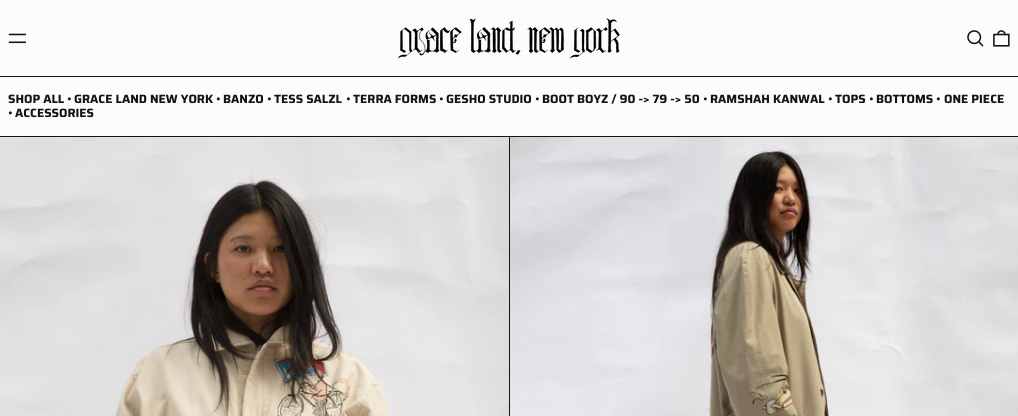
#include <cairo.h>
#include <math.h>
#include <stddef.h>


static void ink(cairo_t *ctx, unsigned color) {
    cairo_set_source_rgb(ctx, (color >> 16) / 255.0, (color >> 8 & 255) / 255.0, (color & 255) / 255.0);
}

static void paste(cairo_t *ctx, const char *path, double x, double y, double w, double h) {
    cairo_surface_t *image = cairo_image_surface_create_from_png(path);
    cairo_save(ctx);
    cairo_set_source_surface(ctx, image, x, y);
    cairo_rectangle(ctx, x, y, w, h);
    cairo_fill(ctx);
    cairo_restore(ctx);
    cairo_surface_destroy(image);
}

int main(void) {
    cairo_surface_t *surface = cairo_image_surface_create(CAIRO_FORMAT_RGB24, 1018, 416);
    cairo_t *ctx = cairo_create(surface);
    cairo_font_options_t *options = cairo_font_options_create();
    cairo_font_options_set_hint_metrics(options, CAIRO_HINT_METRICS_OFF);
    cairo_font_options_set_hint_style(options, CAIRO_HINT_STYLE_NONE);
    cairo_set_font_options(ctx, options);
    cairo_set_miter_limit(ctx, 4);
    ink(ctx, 0xFCFCFC);
    cairo_paint(ctx);
    paste(ctx, "media/1.png", 8, 33, 18, 11);
    paste(ctx, "media/2.png", 398, 18, 222, 41);
    paste(ctx, "media/3.png", 967, 30, 17, 17);
    paste(ctx, "media/4.png", 993, 30, 17, 17);
    ink(ctx, 0x13131A);
    cairo_rectangle(ctx, 0, 76, 1018, 1);
    cairo_fill(ctx);
    cairo_select_font_face(ctx, "Saira", CAIRO_FONT_SLANT_NORMAL, CAIRO_FONT_WEIGHT_BOLD);
    cairo_set_font_size(ctx, 12);
    cairo_move_to(ctx, 8, 103);
    cairo_show_text(ctx, "SHOP ALL");
    cairo_select_font_face(ctx, "Archivo", CAIRO_FONT_SLANT_NORMAL, CAIRO_FONT_WEIGHT_NORMAL);
    cairo_move_to(ctx, 67, 103);
    cairo_show_text(ctx, "•");
    cairo_select_font_face(ctx, "Saira", CAIRO_FONT_SLANT_NORMAL, CAIRO_FONT_WEIGHT_BOLD);
    cairo_move_to(ctx, 74, 103);
    cairo_show_text(ctx, "GRACE LAND NEW YORK");
    cairo_select_font_face(ctx, "Archivo", CAIRO_FONT_SLANT_NORMAL, CAIRO_FONT_WEIGHT_NORMAL);
    cairo_move_to(ctx, 216, 103);
    cairo_show_text(ctx, "•");
    cairo_select_font_face(ctx, "Saira", CAIRO_FONT_SLANT_NORMAL, CAIRO_FONT_WEIGHT_BOLD);
    cairo_move_to(ctx, 223, 103);
    cairo_show_text(ctx, "BANZO");
    cairo_select_font_face(ctx, "Archivo", CAIRO_FONT_SLANT_NORMAL, CAIRO_FONT_WEIGHT_NORMAL);
    cairo_move_to(ctx, 267, 103);
    cairo_show_text(ctx, "•");
    cairo_select_font_face(ctx, "Saira", CAIRO_FONT_SLANT_NORMAL, CAIRO_FONT_WEIGHT_BOLD);
    cairo_move_to(ctx, 274, 103);
    cairo_show_text(ctx, "TESS SALZL");
    cairo_select_font_face(ctx, "Archivo", CAIRO_FONT_SLANT_NORMAL, CAIRO_FONT_WEIGHT_NORMAL);
    cairo_move_to(ctx, 346, 103);
    cairo_show_text(ctx, "•");
    cairo_select_font_face(ctx, "Saira", CAIRO_FONT_SLANT_NORMAL, CAIRO_FONT_WEIGHT_BOLD);
    cairo_move_to(ctx, 353, 103);
    cairo_show_text(ctx, "TERRA FORMS");
    cairo_select_font_face(ctx, "Archivo", CAIRO_FONT_SLANT_NORMAL, CAIRO_FONT_WEIGHT_NORMAL);
    cairo_move_to(ctx, 439, 103);
    cairo_show_text(ctx, "•");
    cairo_select_font_face(ctx, "Saira", CAIRO_FONT_SLANT_NORMAL, CAIRO_FONT_WEIGHT_BOLD);
    cairo_move_to(ctx, 446, 103);
    cairo_show_text(ctx, "GESHO STUDIO");
    cairo_select_font_face(ctx, "Archivo", CAIRO_FONT_SLANT_NORMAL, CAIRO_FONT_WEIGHT_NORMAL);
    cairo_move_to(ctx, 535, 103);
    cairo_show_text(ctx, "•");
    cairo_select_font_face(ctx, "Saira", CAIRO_FONT_SLANT_NORMAL, CAIRO_FONT_WEIGHT_BOLD);
    cairo_move_to(ctx, 542, 103);
    cairo_show_text(ctx, "BOOT BOYZ / 90 -> 79 -> 50");
    cairo_select_font_face(ctx, "Archivo", CAIRO_FONT_SLANT_NORMAL, CAIRO_FONT_WEIGHT_NORMAL);
    cairo_move_to(ctx, 703, 103);
    cairo_show_text(ctx, "•");
    cairo_select_font_face(ctx, "Saira", CAIRO_FONT_SLANT_NORMAL, CAIRO_FONT_WEIGHT_BOLD);
    cairo_move_to(ctx, 710, 103);
    cairo_show_text(ctx, "RAMSHAH KANWAL");
    cairo_select_font_face(ctx, "Archivo", CAIRO_FONT_SLANT_NORMAL, CAIRO_FONT_WEIGHT_NORMAL);
    cairo_move_to(ctx, 828, 103);
    cairo_show_text(ctx, "•");
    cairo_select_font_face(ctx, "Saira", CAIRO_FONT_SLANT_NORMAL, CAIRO_FONT_WEIGHT_BOLD);
    cairo_move_to(ctx, 835, 103);
    cairo_show_text(ctx, "TOPS");
    cairo_select_font_face(ctx, "Archivo", CAIRO_FONT_SLANT_NORMAL, CAIRO_FONT_WEIGHT_NORMAL);
    cairo_move_to(ctx, 869, 103);
    cairo_show_text(ctx, "•");
    cairo_select_font_face(ctx, "Saira", CAIRO_FONT_SLANT_NORMAL, CAIRO_FONT_WEIGHT_BOLD);
    cairo_move_to(ctx, 876, 103);
    cairo_show_text(ctx, "BOTTOMS");
    cairo_select_font_face(ctx, "Archivo", CAIRO_FONT_SLANT_NORMAL, CAIRO_FONT_WEIGHT_NORMAL);
    cairo_move_to(ctx, 936, 103);
    cairo_show_text(ctx, "•");
    cairo_select_font_face(ctx, "Saira", CAIRO_FONT_SLANT_NORMAL, CAIRO_FONT_WEIGHT_BOLD);
    cairo_move_to(ctx, 944, 103);
    cairo_show_text(ctx, "ONE PIECE");
    cairo_select_font_face(ctx, "Archivo", CAIRO_FONT_SLANT_NORMAL, CAIRO_FONT_WEIGHT_NORMAL);
    cairo_move_to(ctx, 8, 117);
    cairo_show_text(ctx, "•");
    cairo_select_font_face(ctx, "Saira", CAIRO_FONT_SLANT_NORMAL, CAIRO_FONT_WEIGHT_BOLD);
    cairo_move_to(ctx, 15, 117);
    cairo_show_text(ctx, "ACCESSORIES");
    cairo_rectangle(ctx, 0, 136, 1018, 1);
    cairo_fill(ctx);
    cairo_rectangle(ctx, 509, 137, 1, 279);
    cairo_fill(ctx);
    paste(ctx, "media/5.png", 0, 137, 509, 279);
    paste(ctx, "media/6.png", 510, 137, 508, 279);
    cairo_surface_write_to_png(surface, "image.png");
    cairo_font_options_destroy(options);
    cairo_destroy(ctx);
    cairo_surface_destroy(surface);
    return 0;
}
